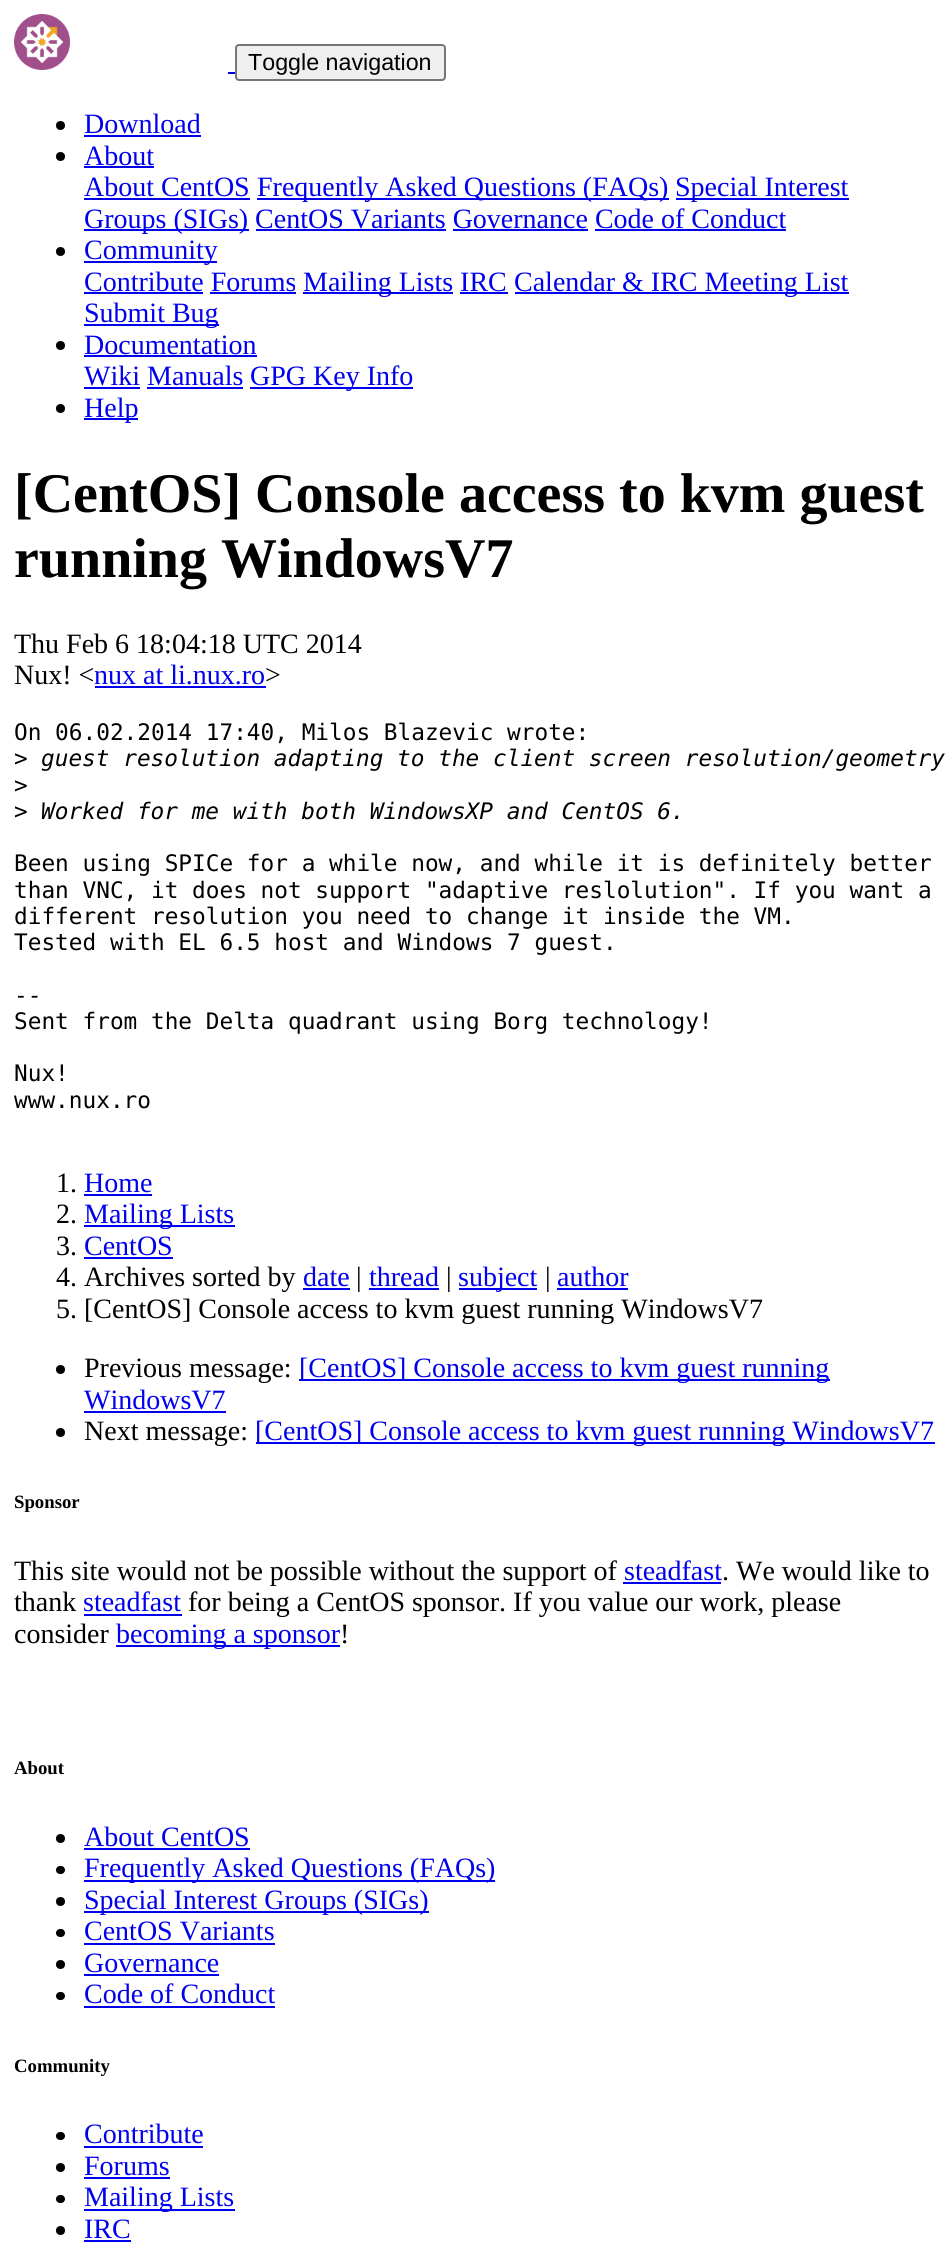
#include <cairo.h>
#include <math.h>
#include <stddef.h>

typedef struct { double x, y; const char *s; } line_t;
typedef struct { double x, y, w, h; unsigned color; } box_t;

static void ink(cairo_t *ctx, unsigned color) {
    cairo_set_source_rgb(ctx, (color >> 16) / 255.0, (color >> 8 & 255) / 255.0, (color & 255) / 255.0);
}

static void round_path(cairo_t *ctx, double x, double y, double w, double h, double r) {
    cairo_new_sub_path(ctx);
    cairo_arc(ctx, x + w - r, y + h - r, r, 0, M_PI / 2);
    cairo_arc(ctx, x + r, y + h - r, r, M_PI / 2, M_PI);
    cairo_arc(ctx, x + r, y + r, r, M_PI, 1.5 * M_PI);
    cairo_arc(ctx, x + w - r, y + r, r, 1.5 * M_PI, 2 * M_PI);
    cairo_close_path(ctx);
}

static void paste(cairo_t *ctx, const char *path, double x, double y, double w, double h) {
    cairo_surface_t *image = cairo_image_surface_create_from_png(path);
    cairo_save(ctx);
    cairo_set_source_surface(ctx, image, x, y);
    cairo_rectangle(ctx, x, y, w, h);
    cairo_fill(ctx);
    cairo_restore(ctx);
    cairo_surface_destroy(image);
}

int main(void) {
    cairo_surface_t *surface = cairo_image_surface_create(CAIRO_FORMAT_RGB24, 950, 2247);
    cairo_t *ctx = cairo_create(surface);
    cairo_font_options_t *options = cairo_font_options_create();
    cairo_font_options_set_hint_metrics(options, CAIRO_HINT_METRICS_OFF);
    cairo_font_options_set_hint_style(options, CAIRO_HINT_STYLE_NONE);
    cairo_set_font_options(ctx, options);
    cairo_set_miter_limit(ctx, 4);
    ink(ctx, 0xFFFFFF);
    cairo_paint(ctx);
    paste(ctx, "media/1.png", 14, 14, 56, 56);
    ink(ctx, 0x0000EE);
    cairo_rectangle(ctx, 228, 72, 7, 2);
    cairo_fill(ctx);
    ink(ctx, 0xEFEFEF);
    round_path(ctx, 236, 45, 209, 35, 3);
    cairo_fill_preserve(ctx);
    ink(ctx, 0x767676);
    cairo_stroke(ctx);
    cairo_select_font_face(ctx, "Liberation Sans", CAIRO_FONT_SLANT_NORMAL, CAIRO_FONT_WEIGHT_NORMAL);
    cairo_set_font_size(ctx, 23.25);
    ink(ctx, 0x000000);
    cairo_move_to(ctx, 248, 70);
    cairo_show_text(ctx, "Toggle navigation");
    cairo_new_path(ctx);
    cairo_arc(ctx, 60.5, 125.5, 4.5, 0, 2 * M_PI);
    cairo_fill(ctx);
    cairo_select_font_face(ctx, "Liberation Serif", CAIRO_FONT_SLANT_NORMAL, CAIRO_FONT_WEIGHT_NORMAL);
    cairo_set_font_size(ctx, 28);
    ink(ctx, 0x0000EE);
    cairo_move_to(ctx, 84, 133);
    cairo_show_text(ctx, "Download");
    cairo_rectangle(ctx, 84, 135, 117, 2);
    cairo_fill(ctx);
    ink(ctx, 0x000000);
    cairo_arc(ctx, 60.5, 156.5, 4.5, 0, 2 * M_PI);
    cairo_fill(ctx);
    ink(ctx, 0x0000EE);
    cairo_move_to(ctx, 84, 165);
    cairo_show_text(ctx, "About");
    cairo_rectangle(ctx, 84, 166, 70, 2);
    cairo_fill(ctx);
    cairo_move_to(ctx, 84, 196);
    cairo_show_text(ctx, "About CentOS");
    cairo_rectangle(ctx, 84, 198, 166, 2);
    cairo_fill(ctx);
    cairo_rectangle(ctx, 257, 198, 412, 2);
    cairo_fill(ctx);
    cairo_move_to(ctx, 257, 196);
    cairo_show_text(ctx, "Frequently Asked Questions (FAQs)");
    cairo_rectangle(ctx, 676, 198, 173, 2);
    cairo_fill(ctx);
    cairo_move_to(ctx, 675, 196);
    cairo_show_text(ctx, "Special Interest");
    cairo_rectangle(ctx, 84, 229, 165, 2);
    cairo_fill(ctx);
    cairo_move_to(ctx, 84, 228);
    cairo_show_text(ctx, "Groups (SIGs) CentOS Variants Governance Code of Conduct");
    {
        static const box_t items[] = {
            {256, 229, 190, 2, 0x0000EE},
            {453, 229, 135, 2, 0x0000EE},
            {595, 229, 191, 2, 0x0000EE},
        };
        for (size_t i = 0; i < sizeof items / sizeof *items; i++) {
            ink(ctx, items[i].color);
            cairo_rectangle(ctx, items[i].x, items[i].y, items[i].w, items[i].h);
            cairo_fill(ctx);
        }
    }
    ink(ctx, 0x000000);
    cairo_new_path(ctx);
    cairo_arc(ctx, 60.5, 251.5, 4.5, 0, 2 * M_PI);
    cairo_fill(ctx);
    ink(ctx, 0x0000EE);
    cairo_rectangle(ctx, 84, 261, 133, 2);
    cairo_fill(ctx);
    cairo_move_to(ctx, 84, 259);
    cairo_show_text(ctx, "Community");
    cairo_move_to(ctx, 84, 291);
    cairo_show_text(ctx, "Contribute Forums");
    cairo_rectangle(ctx, 84, 292, 119, 2);
    cairo_fill(ctx);
    cairo_rectangle(ctx, 303, 292, 150, 2);
    cairo_fill(ctx);
    cairo_move_to(ctx, 303, 291);
    cairo_show_text(ctx, "Mailing Lists IRC");
    cairo_rectangle(ctx, 515, 292, 334, 2);
    cairo_fill(ctx);
    cairo_move_to(ctx, 514, 291);
    cairo_show_text(ctx, "Calendar & IRC Meeting List");
    {
        static const box_t items[] = {
            {210, 292, 86, 2, 0x0000EE},
            {460, 292, 48, 2, 0x0000EE},
            {84, 324, 135, 2, 0x0000EE},
        };
        for (size_t i = 0; i < sizeof items / sizeof *items; i++) {
            ink(ctx, items[i].color);
            cairo_rectangle(ctx, items[i].x, items[i].y, items[i].w, items[i].h);
            cairo_fill(ctx);
        }
    }
    cairo_move_to(ctx, 84, 322);
    cairo_show_text(ctx, "Submit Bug");
    ink(ctx, 0x000000);
    cairo_new_path(ctx);
    cairo_arc(ctx, 60.5, 345.5, 4.5, 0, 2 * M_PI);
    cairo_fill(ctx);
    ink(ctx, 0x0000EE);
    cairo_move_to(ctx, 84, 354);
    cairo_show_text(ctx, "Documentation");
    cairo_rectangle(ctx, 84, 355, 173, 2);
    cairo_fill(ctx);
    cairo_move_to(ctx, 84, 385);
    cairo_show_text(ctx, "Wiki Manuals");
    cairo_rectangle(ctx, 84, 387, 56, 2);
    cairo_fill(ctx);
    cairo_rectangle(ctx, 250, 387, 163, 2);
    cairo_fill(ctx);
    cairo_move_to(ctx, 250, 385);
    cairo_show_text(ctx, "GPG Key Info");
    cairo_rectangle(ctx, 147, 387, 96, 2);
    cairo_fill(ctx);
    ink(ctx, 0x000000);
    cairo_arc(ctx, 60.5, 408.5, 4.5, 0, 2 * M_PI);
    cairo_fill(ctx);
    ink(ctx, 0x0000EE);
    cairo_rectangle(ctx, 84, 418, 54, 2);
    cairo_fill(ctx);
    cairo_move_to(ctx, 84, 417);
    cairo_show_text(ctx, "Help");
    cairo_select_font_face(ctx, "Liberation Serif", CAIRO_FONT_SLANT_NORMAL, CAIRO_FONT_WEIGHT_BOLD);
    cairo_set_font_size(ctx, 56);
    ink(ctx, 0x000000);
    cairo_move_to(ctx, 14, 512);
    cairo_show_text(ctx, "[CentOS] Console access to kvm guest");
    cairo_move_to(ctx, 14, 577);
    cairo_show_text(ctx, "running WindowsV7");
    cairo_select_font_face(ctx, "Liberation Serif", CAIRO_FONT_SLANT_NORMAL, CAIRO_FONT_WEIGHT_NORMAL);
    cairo_set_font_size(ctx, 28);
    cairo_move_to(ctx, 14, 653);
    cairo_show_text(ctx, "Thu Feb 6 18:04:18 UTC 2014");
    cairo_move_to(ctx, 14, 684);
    cairo_show_text(ctx, "Nux! <");
    ink(ctx, 0x0000EE);
    cairo_move_to(ctx, 94, 684);
    cairo_show_text(ctx, "nux at li.nux.ro");
    cairo_rectangle(ctx, 95, 686, 171, 2);
    cairo_fill(ctx);
    ink(ctx, 0x000000);
    cairo_move_to(ctx, 265, 684);
    cairo_show_text(ctx, ">");
    cairo_select_font_face(ctx, "DejaVu Sans Mono", CAIRO_FONT_SLANT_NORMAL, CAIRO_FONT_WEIGHT_NORMAL);
    cairo_set_font_size(ctx, 22.75);
    cairo_move_to(ctx, 14, 740);
    cairo_show_text(ctx, "On 06.02.2014 17:40, Milos Blazevic wrote:");
    cairo_move_to(ctx, 14, 766);
    cairo_show_text(ctx, ">");
    cairo_select_font_face(ctx, "DejaVu Sans Mono", CAIRO_FONT_SLANT_ITALIC, CAIRO_FONT_WEIGHT_NORMAL);
    cairo_move_to(ctx, 41, 766);
    cairo_show_text(ctx, "guest resolution adapting to the client screen resolution/geometry");
    cairo_select_font_face(ctx, "DejaVu Sans Mono", CAIRO_FONT_SLANT_NORMAL, CAIRO_FONT_WEIGHT_NORMAL);
    cairo_move_to(ctx, 14, 793);
    cairo_show_text(ctx, ">");
    cairo_move_to(ctx, 14, 819);
    cairo_show_text(ctx, ">");
    cairo_select_font_face(ctx, "DejaVu Sans Mono", CAIRO_FONT_SLANT_ITALIC, CAIRO_FONT_WEIGHT_NORMAL);
    cairo_move_to(ctx, 41, 819);
    cairo_show_text(ctx, "Worked for me with both WindowsXP and CentOS 6.");
    cairo_select_font_face(ctx, "DejaVu Sans Mono", CAIRO_FONT_SLANT_NORMAL, CAIRO_FONT_WEIGHT_NORMAL);
    {
        static const line_t items[] = {
            {14, 871, "Been using SPICe for a while now, and while it is definitely better"},
            {14, 898, "than VNC, it does not support \"adaptive reslolution\". If you want a"},
            {14, 924, "different resolution you need to change it inside the VM."},
            {14, 950, "Tested with EL 6.5 host and Windows 7 guest."},
            {14, 1003, "--"},
            {14, 1029, "Sent from the Delta quadrant using Borg technology!"},
            {14, 1081, "Nux!"},
            {14, 1108, "www.nux.ro"},
        };
        for (size_t i = 0; i < sizeof items / sizeof *items; i++) {
            cairo_move_to(ctx, items[i].x, items[i].y);
            cairo_show_text(ctx, items[i].s);
        }
    }
    cairo_select_font_face(ctx, "Liberation Serif", CAIRO_FONT_SLANT_NORMAL, CAIRO_FONT_WEIGHT_NORMAL);
    cairo_set_font_size(ctx, 28);
    cairo_move_to(ctx, 56, 1192);
    cairo_show_text(ctx, "1.");
    ink(ctx, 0x0000EE);
    cairo_move_to(ctx, 84, 1192);
    cairo_show_text(ctx, "Home");
    cairo_rectangle(ctx, 84, 1194, 68, 2);
    cairo_fill(ctx);
    ink(ctx, 0x000000);
    cairo_move_to(ctx, 56, 1223);
    cairo_show_text(ctx, "2.");
    ink(ctx, 0x0000EE);
    cairo_rectangle(ctx, 84, 1225, 151, 2);
    cairo_fill(ctx);
    cairo_move_to(ctx, 84, 1223);
    cairo_show_text(ctx, "Mailing Lists");
    ink(ctx, 0x000000);
    cairo_move_to(ctx, 56, 1255);
    cairo_show_text(ctx, "3.");
    ink(ctx, 0x0000EE);
    cairo_move_to(ctx, 84, 1255);
    cairo_show_text(ctx, "CentOS");
    cairo_rectangle(ctx, 84, 1257, 89, 2);
    cairo_fill(ctx);
    ink(ctx, 0x000000);
    cairo_move_to(ctx, 56, 1286);
    cairo_show_text(ctx, "4. Archives sorted by");
    ink(ctx, 0x0000EE);
    cairo_move_to(ctx, 303, 1286);
    cairo_show_text(ctx, "date");
    cairo_rectangle(ctx, 303, 1288, 47, 2);
    cairo_fill(ctx);
    ink(ctx, 0x000000);
    cairo_move_to(ctx, 356, 1286);
    cairo_show_text(ctx, "|");
    ink(ctx, 0x0000EE);
    cairo_move_to(ctx, 369, 1286);
    cairo_show_text(ctx, "thread");
    cairo_rectangle(ctx, 369, 1288, 70, 2);
    cairo_fill(ctx);
    ink(ctx, 0x000000);
    cairo_move_to(ctx, 446, 1286);
    cairo_show_text(ctx, "|");
    ink(ctx, 0x0000EE);
    cairo_rectangle(ctx, 459, 1288, 78, 2);
    cairo_fill(ctx);
    cairo_move_to(ctx, 458, 1286);
    cairo_show_text(ctx, "subject");
    ink(ctx, 0x000000);
    cairo_move_to(ctx, 545, 1286);
    cairo_show_text(ctx, "|");
    ink(ctx, 0x0000EE);
    cairo_move_to(ctx, 557, 1286);
    cairo_show_text(ctx, "author");
    cairo_rectangle(ctx, 557, 1288, 71, 2);
    cairo_fill(ctx);
    ink(ctx, 0x000000);
    cairo_move_to(ctx, 56, 1318);
    cairo_show_text(ctx, "5. [CentOS] Console access to kvm guest running WindowsV7");
    cairo_new_path(ctx);
    cairo_arc(ctx, 60.5, 1369.5, 4.5, 0, 2 * M_PI);
    cairo_fill(ctx);
    cairo_move_to(ctx, 84, 1377);
    cairo_show_text(ctx, "Previous message:");
    ink(ctx, 0x0000EE);
    cairo_rectangle(ctx, 299, 1379, 531, 2);
    cairo_fill(ctx);
    cairo_move_to(ctx, 299, 1377);
    cairo_show_text(ctx, "[CentOS] Console access to kvm guest running");
    cairo_move_to(ctx, 84, 1409);
    cairo_show_text(ctx, "WindowsV7");
    cairo_rectangle(ctx, 84, 1411, 142, 2);
    cairo_fill(ctx);
    ink(ctx, 0x000000);
    cairo_arc(ctx, 60.5, 1432.5, 4.5, 0, 2 * M_PI);
    cairo_fill(ctx);
    cairo_move_to(ctx, 84, 1440);
    cairo_show_text(ctx, "Next message:");
    ink(ctx, 0x0000EE);
    cairo_rectangle(ctx, 256, 1442, 679, 2);
    cairo_fill(ctx);
    cairo_move_to(ctx, 255, 1440);
    cairo_show_text(ctx, "[CentOS] Console access to kvm guest running WindowsV7");
    cairo_select_font_face(ctx, "Liberation Serif", CAIRO_FONT_SLANT_NORMAL, CAIRO_FONT_WEIGHT_BOLD);
    cairo_set_font_size(ctx, 18.75);
    ink(ctx, 0x000000);
    cairo_move_to(ctx, 14, 1508);
    cairo_show_text(ctx, "Sponsor");
    cairo_select_font_face(ctx, "Liberation Serif", CAIRO_FONT_SLANT_NORMAL, CAIRO_FONT_WEIGHT_NORMAL);
    cairo_set_font_size(ctx, 28);
    cairo_move_to(ctx, 14, 1580);
    cairo_show_text(ctx, "This site would not be possible without the support of");
    ink(ctx, 0x0000EE);
    cairo_move_to(ctx, 624, 1580);
    cairo_show_text(ctx, "steadfast");
    cairo_rectangle(ctx, 623, 1582, 98, 2);
    cairo_fill(ctx);
    ink(ctx, 0x000000);
    cairo_move_to(ctx, 722, 1580);
    cairo_show_text(ctx, ". We would like to");
    cairo_move_to(ctx, 14, 1611);
    cairo_show_text(ctx, "thank");
    ink(ctx, 0x0000EE);
    cairo_move_to(ctx, 83, 1611);
    cairo_show_text(ctx, "steadfast");
    cairo_rectangle(ctx, 84, 1614, 98, 2);
    cairo_fill(ctx);
    ink(ctx, 0x000000);
    cairo_move_to(ctx, 188, 1611);
    cairo_show_text(ctx, "for being a CentOS sponsor. If you value our work, please");
    cairo_move_to(ctx, 14, 1643);
    cairo_show_text(ctx, "consider");
    ink(ctx, 0x0000EE);
    cairo_rectangle(ctx, 116, 1645, 224, 2);
    cairo_fill(ctx);
    cairo_move_to(ctx, 116, 1643);
    cairo_show_text(ctx, "becoming a sponsor");
    ink(ctx, 0x000000);
    cairo_move_to(ctx, 340, 1643);
    cairo_show_text(ctx, "!");
    cairo_select_font_face(ctx, "Liberation Serif", CAIRO_FONT_SLANT_NORMAL, CAIRO_FONT_WEIGHT_BOLD);
    cairo_set_font_size(ctx, 18.75);
    cairo_move_to(ctx, 14, 1774);
    cairo_show_text(ctx, "About");
    cairo_new_path(ctx);
    cairo_arc(ctx, 60.5, 1838.5, 4.5, 0, 2 * M_PI);
    cairo_fill(ctx);
    cairo_select_font_face(ctx, "Liberation Serif", CAIRO_FONT_SLANT_NORMAL, CAIRO_FONT_WEIGHT_NORMAL);
    cairo_set_font_size(ctx, 28);
    ink(ctx, 0x0000EE);
    cairo_move_to(ctx, 84, 1846);
    cairo_show_text(ctx, "About CentOS");
    cairo_rectangle(ctx, 84, 1848, 166, 2);
    cairo_fill(ctx);
    ink(ctx, 0x000000);
    round_path(ctx, 56, 1866, 9, 8, 4);
    cairo_fill(ctx);
    ink(ctx, 0x0000EE);
    cairo_rectangle(ctx, 84, 1880, 411, 2);
    cairo_fill(ctx);
    cairo_move_to(ctx, 84, 1877);
    cairo_show_text(ctx, "Frequently Asked Questions (FAQs)");
    ink(ctx, 0x000000);
    cairo_new_path(ctx);
    cairo_arc(ctx, 60.5, 1901.5, 4.5, 0, 2 * M_PI);
    cairo_fill(ctx);
    ink(ctx, 0x0000EE);
    cairo_rectangle(ctx, 84, 1911, 345, 2);
    cairo_fill(ctx);
    cairo_move_to(ctx, 84, 1909);
    cairo_show_text(ctx, "Special Interest Groups (SIGs)");
    ink(ctx, 0x000000);
    round_path(ctx, 56, 1929, 9, 8, 4);
    cairo_fill(ctx);
    ink(ctx, 0x0000EE);
    cairo_move_to(ctx, 84, 1940);
    cairo_show_text(ctx, "CentOS Variants");
    cairo_rectangle(ctx, 84, 1943, 191, 2);
    cairo_fill(ctx);
    ink(ctx, 0x000000);
    cairo_arc(ctx, 60.5, 1964.5, 4.5, 0, 2 * M_PI);
    cairo_fill(ctx);
    ink(ctx, 0x0000EE);
    cairo_move_to(ctx, 84, 1972);
    cairo_show_text(ctx, "Governance");
    cairo_rectangle(ctx, 84, 1974, 135, 2);
    cairo_fill(ctx);
    ink(ctx, 0x000000);
    round_path(ctx, 56, 1992, 9, 8, 4);
    cairo_fill(ctx);
    ink(ctx, 0x0000EE);
    cairo_move_to(ctx, 84, 2003);
    cairo_show_text(ctx, "Code of Conduct");
    cairo_rectangle(ctx, 84, 2006, 191, 2);
    cairo_fill(ctx);
    cairo_select_font_face(ctx, "Liberation Serif", CAIRO_FONT_SLANT_NORMAL, CAIRO_FONT_WEIGHT_BOLD);
    cairo_set_font_size(ctx, 18.75);
    ink(ctx, 0x000000);
    cairo_move_to(ctx, 14, 2072);
    cairo_show_text(ctx, "Community");
    round_path(ctx, 56, 2132, 9, 8, 4);
    cairo_fill(ctx);
    cairo_select_font_face(ctx, "Liberation Serif", CAIRO_FONT_SLANT_NORMAL, CAIRO_FONT_WEIGHT_NORMAL);
    cairo_set_font_size(ctx, 28);
    ink(ctx, 0x0000EE);
    cairo_move_to(ctx, 84, 2143);
    cairo_show_text(ctx, "Contribute");
    cairo_rectangle(ctx, 84, 2146, 119, 2);
    cairo_fill(ctx);
    ink(ctx, 0x000000);
    cairo_arc(ctx, 60.5, 2167.5, 4.5, 0, 2 * M_PI);
    cairo_fill(ctx);
    ink(ctx, 0x0000EE);
    cairo_move_to(ctx, 84, 2175);
    cairo_show_text(ctx, "Forums");
    cairo_rectangle(ctx, 84, 2177, 86, 2);
    cairo_fill(ctx);
    ink(ctx, 0x000000);
    round_path(ctx, 56, 2195, 9, 8, 4);
    cairo_fill(ctx);
    ink(ctx, 0x0000EE);
    cairo_rectangle(ctx, 84, 2209, 151, 2);
    cairo_fill(ctx);
    cairo_move_to(ctx, 84, 2206);
    cairo_show_text(ctx, "Mailing Lists");
    ink(ctx, 0x000000);
    cairo_new_path(ctx);
    cairo_arc(ctx, 60.5, 2230.5, 4.5, 0, 2 * M_PI);
    cairo_fill(ctx);
    ink(ctx, 0x0000EE);
    cairo_move_to(ctx, 84, 2238);
    cairo_show_text(ctx, "IRC");
    cairo_rectangle(ctx, 84, 2240, 47, 2);
    cairo_fill(ctx);
    cairo_surface_write_to_png(surface, "image.png");
    cairo_font_options_destroy(options);
    cairo_destroy(ctx);
    cairo_surface_destroy(surface);
    return 0;
}
